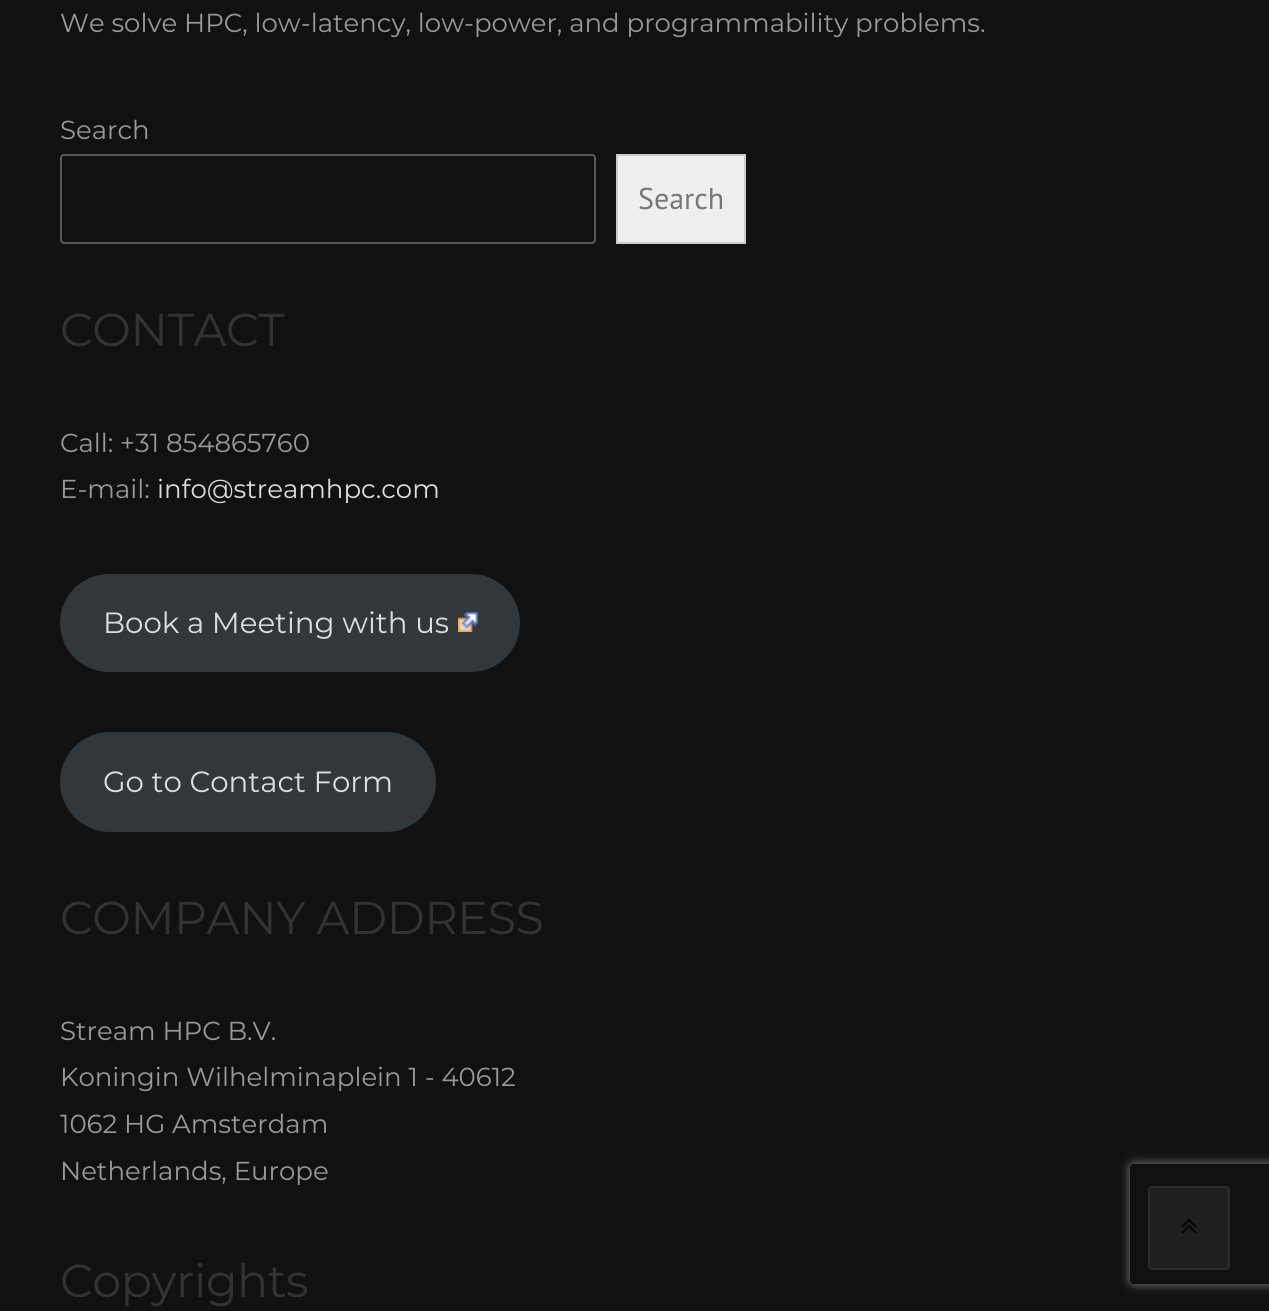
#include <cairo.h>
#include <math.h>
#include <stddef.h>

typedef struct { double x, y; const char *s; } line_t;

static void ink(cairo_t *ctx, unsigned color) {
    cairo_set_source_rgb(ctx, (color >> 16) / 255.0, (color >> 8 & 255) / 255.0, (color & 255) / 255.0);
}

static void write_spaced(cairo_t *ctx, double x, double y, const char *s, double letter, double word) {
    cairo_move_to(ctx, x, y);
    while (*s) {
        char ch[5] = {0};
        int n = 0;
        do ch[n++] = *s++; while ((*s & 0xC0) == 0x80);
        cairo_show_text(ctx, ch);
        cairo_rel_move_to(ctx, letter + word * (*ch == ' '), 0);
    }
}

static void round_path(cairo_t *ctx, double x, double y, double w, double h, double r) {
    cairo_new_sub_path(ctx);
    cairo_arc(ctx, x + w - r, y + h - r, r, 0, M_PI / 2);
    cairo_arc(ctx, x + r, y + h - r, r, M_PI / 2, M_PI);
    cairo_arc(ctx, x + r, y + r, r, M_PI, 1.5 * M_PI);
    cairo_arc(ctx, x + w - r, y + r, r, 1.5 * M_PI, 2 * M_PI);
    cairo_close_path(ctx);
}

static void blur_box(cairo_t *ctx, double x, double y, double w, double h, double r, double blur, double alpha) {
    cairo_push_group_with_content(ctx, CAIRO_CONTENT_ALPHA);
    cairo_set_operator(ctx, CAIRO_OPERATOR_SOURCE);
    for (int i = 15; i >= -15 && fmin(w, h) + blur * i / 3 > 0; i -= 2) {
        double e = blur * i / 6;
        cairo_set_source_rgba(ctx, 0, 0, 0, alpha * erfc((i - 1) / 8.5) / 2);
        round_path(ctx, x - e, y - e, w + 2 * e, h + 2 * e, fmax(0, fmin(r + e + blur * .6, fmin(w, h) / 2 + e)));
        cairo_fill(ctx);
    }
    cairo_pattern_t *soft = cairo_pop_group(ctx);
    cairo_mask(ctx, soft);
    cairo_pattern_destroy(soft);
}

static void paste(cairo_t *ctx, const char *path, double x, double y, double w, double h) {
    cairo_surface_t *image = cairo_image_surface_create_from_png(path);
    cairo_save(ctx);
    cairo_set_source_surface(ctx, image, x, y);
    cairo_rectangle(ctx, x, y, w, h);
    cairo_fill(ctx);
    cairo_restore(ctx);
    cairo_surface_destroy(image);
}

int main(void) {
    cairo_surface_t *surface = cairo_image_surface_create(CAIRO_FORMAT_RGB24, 1269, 1311);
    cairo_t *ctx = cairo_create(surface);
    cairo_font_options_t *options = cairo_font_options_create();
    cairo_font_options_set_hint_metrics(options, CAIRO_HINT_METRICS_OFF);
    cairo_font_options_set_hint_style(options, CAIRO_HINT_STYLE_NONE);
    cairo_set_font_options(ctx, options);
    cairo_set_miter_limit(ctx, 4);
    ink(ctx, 0x111111);
    cairo_paint(ctx);
    cairo_select_font_face(ctx, "Montserrat", CAIRO_FONT_SLANT_NORMAL, CAIRO_FONT_WEIGHT_NORMAL);
    cairo_set_font_size(ctx, 26);
    ink(ctx, 0x999999);
    cairo_move_to(ctx, 60, 32);
    cairo_show_text(ctx, "We solve HPC, low-latency, low-power, and programmability problems.");
    cairo_move_to(ctx, 60, 139);
    cairo_show_text(ctx, "Search");
    round_path(ctx, 61, 155, 534, 88, 3);
    ink(ctx, 0x585858);
    cairo_stroke(ctx);
    ink(ctx, 0xEFEFEF);
    cairo_rectangle(ctx, 617, 155, 128, 88);
    cairo_fill_preserve(ctx);
    ink(ctx, 0xCCCCCC);
    cairo_stroke(ctx);
    cairo_select_font_face(ctx, "PT Sans", CAIRO_FONT_SLANT_NORMAL, CAIRO_FONT_WEIGHT_NORMAL);
    cairo_set_font_size(ctx, 30);
    ink(ctx, 0x777777);
    cairo_move_to(ctx, 638, 209);
    cairo_show_text(ctx, "Search");
    cairo_select_font_face(ctx, "Montserrat", CAIRO_FONT_SLANT_NORMAL, CAIRO_FONT_WEIGHT_NORMAL);
    cairo_set_font_size(ctx, 46);
    ink(ctx, 0x333333);
    write_spaced(ctx, 60, 346, "CONTACT", -0.4, 0);
    cairo_set_font_size(ctx, 26);
    ink(ctx, 0x999999);
    cairo_move_to(ctx, 60, 452);
    cairo_show_text(ctx, "Call: +31 854865760");
    cairo_move_to(ctx, 60, 498);
    cairo_show_text(ctx, "E-mail:");
    ink(ctx, 0xDDDDDD);
    cairo_move_to(ctx, 157, 498);
    cairo_show_text(ctx, "info@streamhpc.com");
    ink(ctx, 0x32373C);
    round_path(ctx, 60, 574, 460, 98, 49);
    cairo_fill(ctx);
    cairo_set_font_size(ctx, 29.25);
    ink(ctx, 0xDDDDDD);
    cairo_move_to(ctx, 103, 633);
    cairo_show_text(ctx, "Book a Meeting with us");
    paste(ctx, "media/1.png", 458, 612, 20, 20);
    ink(ctx, 0x32373C);
    round_path(ctx, 60, 732, 376, 100, 50);
    cairo_fill(ctx);
    ink(ctx, 0xDDDDDD);
    cairo_move_to(ctx, 103, 792);
    cairo_show_text(ctx, "Go to Contact Form");
    cairo_set_font_size(ctx, 46);
    ink(ctx, 0x333333);
    write_spaced(ctx, 60, 934, "COMPANY ADDRESS", -0.4, 0);
    cairo_set_font_size(ctx, 26);
    ink(ctx, 0x999999);
    {
        static const line_t items[] = {
            {60, 1040, "Stream HPC B.V."},
            {60, 1086, "Koningin Wilhelminaplein 1 - 40612"},
            {60, 1133, "1062 HG Amsterdam"},
            {60, 1180, "Netherlands, Europe"},
        };
        for (size_t i = 0; i < sizeof items / sizeof *items; i++) {
            cairo_move_to(ctx, items[i].x, items[i].y);
            cairo_show_text(ctx, items[i].s);
        }
    }
    cairo_set_font_size(ctx, 46);
    ink(ctx, 0x333333);
    write_spaced(ctx, 60, 1297, "Copyrights", -0.4, 0);
    cairo_save(ctx);
    cairo_set_fill_rule(ctx, CAIRO_FILL_RULE_EVEN_ODD);
    cairo_new_path(ctx);
    cairo_move_to(ctx, 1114, 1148);
    cairo_line_to(ctx, 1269, 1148);
    cairo_line_to(ctx, 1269, 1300);
    cairo_line_to(ctx, 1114, 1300);
    cairo_close_path(ctx);
    cairo_move_to(ctx, 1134, 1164);
    cairo_line_to(ctx, 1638, 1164);
    cairo_curve_to(ctx, 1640, 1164, 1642, 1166, 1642, 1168);
    cairo_line_to(ctx, 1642, 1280);
    cairo_curve_to(ctx, 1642, 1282, 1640, 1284, 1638, 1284);
    cairo_line_to(ctx, 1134, 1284);
    cairo_curve_to(ctx, 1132, 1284, 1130, 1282, 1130, 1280);
    cairo_line_to(ctx, 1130, 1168);
    cairo_curve_to(ctx, 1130, 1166, 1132, 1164, 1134, 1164);
    cairo_close_path(ctx);
    cairo_clip(ctx);
    ink(ctx, 0x808080);
    blur_box(ctx, 1130, 1164, 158, 120, 4, 5, 1);
    cairo_restore(ctx);
    ink(ctx, 0x1F1F1F);
    round_path(ctx, 1149, 1187, 80, 82, 3);
    cairo_fill_preserve(ctx);
    ink(ctx, 0x2C2C2C);
    cairo_stroke(ctx);
    paste(ctx, "media/2.png", 1181, 1219, 16, 15);
    cairo_surface_write_to_png(surface, "image.png");
    cairo_font_options_destroy(options);
    cairo_destroy(ctx);
    cairo_surface_destroy(surface);
    return 0;
}
